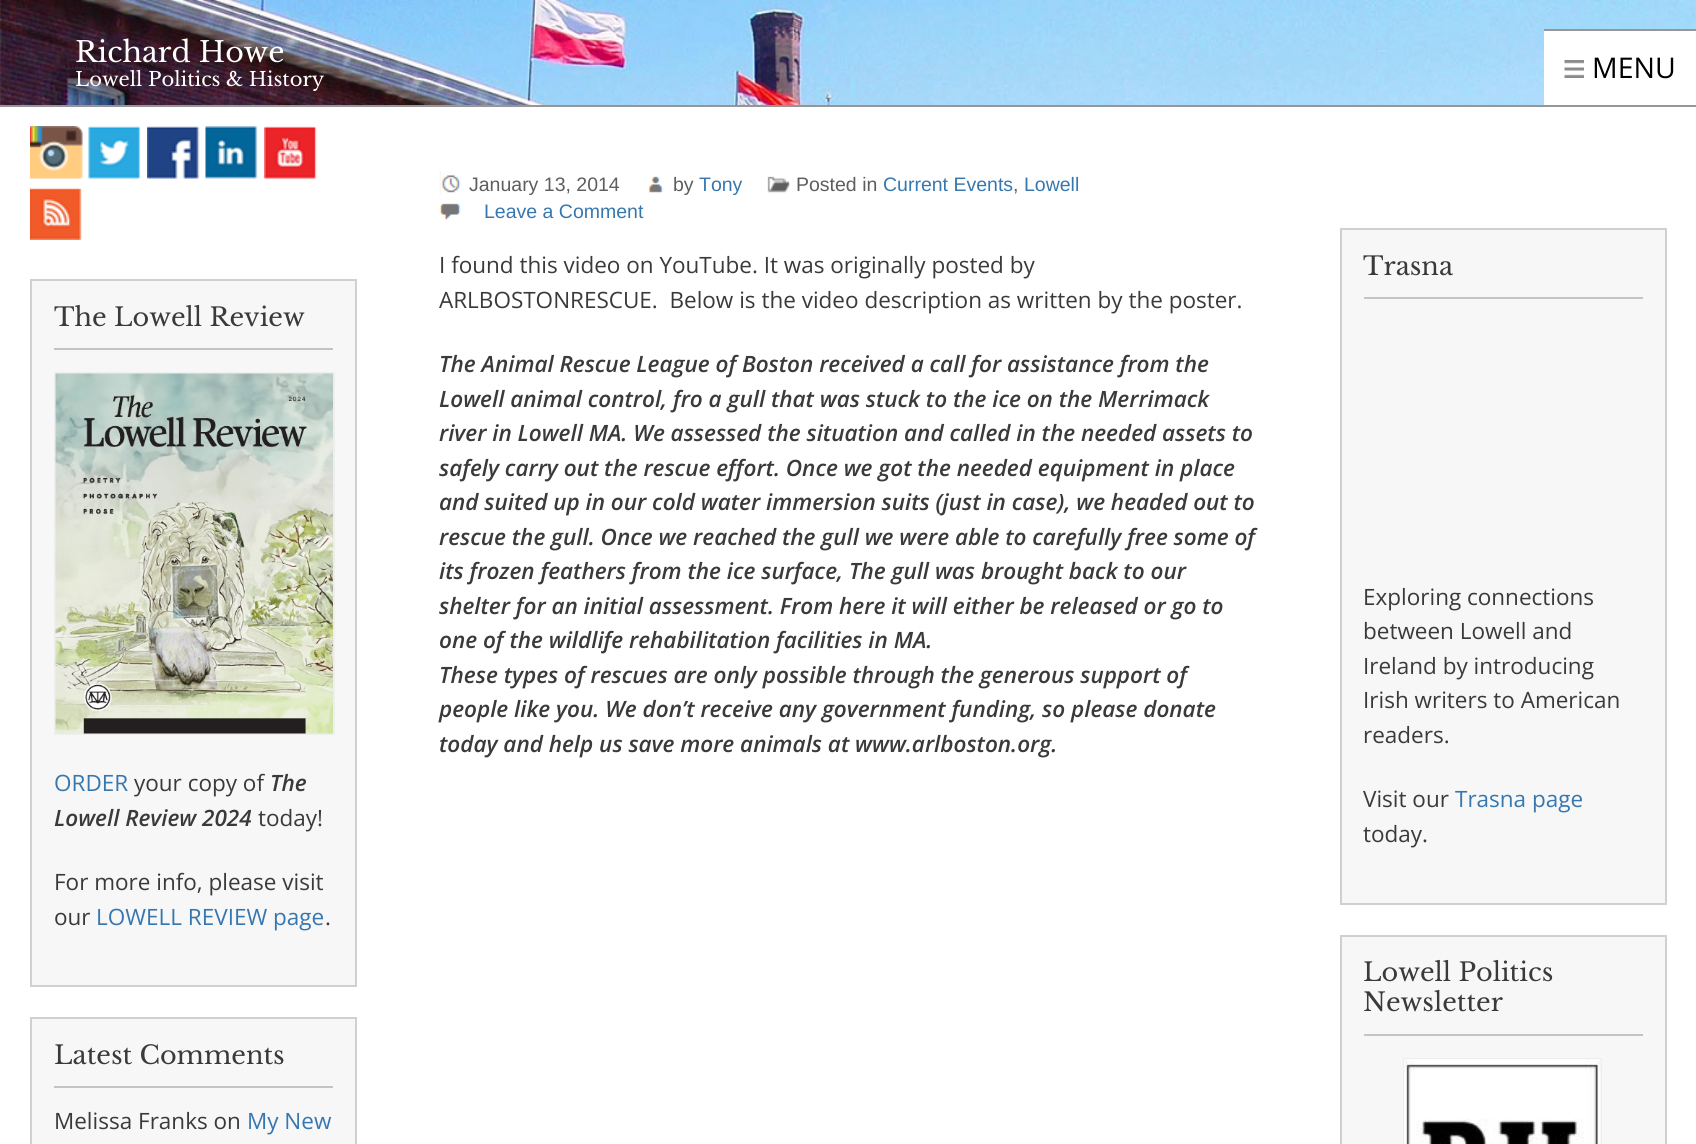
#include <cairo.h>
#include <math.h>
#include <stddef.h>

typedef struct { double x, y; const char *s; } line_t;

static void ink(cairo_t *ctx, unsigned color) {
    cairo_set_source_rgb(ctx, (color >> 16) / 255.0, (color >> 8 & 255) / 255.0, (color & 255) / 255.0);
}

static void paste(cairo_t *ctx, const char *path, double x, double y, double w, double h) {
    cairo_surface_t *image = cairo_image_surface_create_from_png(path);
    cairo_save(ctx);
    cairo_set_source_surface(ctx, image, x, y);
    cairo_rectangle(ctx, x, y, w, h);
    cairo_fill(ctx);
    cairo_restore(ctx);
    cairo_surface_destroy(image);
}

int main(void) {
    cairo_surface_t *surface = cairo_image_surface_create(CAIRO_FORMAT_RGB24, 1696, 1144);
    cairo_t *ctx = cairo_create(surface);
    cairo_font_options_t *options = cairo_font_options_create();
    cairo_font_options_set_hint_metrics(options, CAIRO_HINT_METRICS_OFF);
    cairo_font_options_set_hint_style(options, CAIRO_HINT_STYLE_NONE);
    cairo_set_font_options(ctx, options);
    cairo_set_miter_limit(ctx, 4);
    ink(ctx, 0xFFFFFF);
    cairo_paint(ctx);
    paste(ctx, "media/1.png", 0, 0, 1696, 105);
    cairo_select_font_face(ctx, "Libre Baskerville", CAIRO_FONT_SLANT_NORMAL, CAIRO_FONT_WEIGHT_NORMAL);
    cairo_set_font_size(ctx, 28.5);
    ink(ctx, 0xFFFFFF);
    cairo_move_to(ctx, 75, 62);
    cairo_show_text(ctx, "Richard Howe");
    cairo_set_font_size(ctx, 19.5);
    cairo_move_to(ctx, 75, 86);
    cairo_show_text(ctx, "Lowell Politics & History");
    cairo_rectangle(ctx, 1544, 31, 152, 74);
    cairo_fill(ctx);
    ink(ctx, 0x969696);
    cairo_rectangle(ctx, 1544, 29, 152, 2);
    cairo_fill(ctx);
    paste(ctx, "media/2.png", 1564, 60, 20, 18);
    cairo_select_font_face(ctx, "Open Sans", CAIRO_FONT_SLANT_NORMAL, CAIRO_FONT_WEIGHT_NORMAL);
    cairo_set_font_size(ctx, 28.5);
    ink(ctx, 0x000000);
    cairo_move_to(ctx, 1592, 78);
    cairo_show_text(ctx, "MENU");
    ink(ctx, 0x969696);
    cairo_rectangle(ctx, 0, 105, 1696, 2);
    cairo_fill(ctx);
    paste(ctx, "media/3.png", 30, 126, 53, 53);
    paste(ctx, "media/4.png", 88, 126, 53, 53);
    paste(ctx, "media/5.png", 147, 126, 53, 53);
    paste(ctx, "media/6.png", 205, 126, 53, 53);
    paste(ctx, "media/7.png", 264, 126, 53, 53);
    paste(ctx, "media/8.png", 30, 187, 52, 53);
    ink(ctx, 0xF7F7F7);
    cairo_rectangle(ctx, 31, 280, 325, 706);
    cairo_fill_preserve(ctx);
    ink(ctx, 0xD0D0D0);
    cairo_stroke(ctx);
    ink(ctx, 0xC4C4C4);
    cairo_rectangle(ctx, 54, 348, 279, 2);
    cairo_fill(ctx);
    cairo_select_font_face(ctx, "Libre Baskerville", CAIRO_FONT_SLANT_NORMAL, CAIRO_FONT_WEIGHT_NORMAL);
    cairo_set_font_size(ctx, 25.5);
    ink(ctx, 0x3A3A3A);
    cairo_move_to(ctx, 54, 326);
    cairo_show_text(ctx, "The Lowell Review");
    cairo_rectangle(ctx, 55, 373, 279, 361);
    ink(ctx, 0xEEEEEE);
    cairo_stroke(ctx);
    paste(ctx, "media/9.png", 55, 373, 278, 361);
    cairo_select_font_face(ctx, "Open Sans", CAIRO_FONT_SLANT_NORMAL, CAIRO_FONT_WEIGHT_NORMAL);
    cairo_set_font_size(ctx, 22.5);
    ink(ctx, 0x3777AF);
    cairo_move_to(ctx, 54, 791);
    cairo_show_text(ctx, "ORDER");
    ink(ctx, 0x3A3A3A);
    cairo_move_to(ctx, 134, 791);
    cairo_show_text(ctx, "your copy of");
    cairo_select_font_face(ctx, "Open Sans SemiBold", CAIRO_FONT_SLANT_ITALIC, CAIRO_FONT_WEIGHT_NORMAL);
    cairo_move_to(ctx, 270, 791);
    cairo_show_text(ctx, "The");
    cairo_move_to(ctx, 54, 826);
    cairo_show_text(ctx, "Lowell Review 2024");
    cairo_select_font_face(ctx, "Open Sans", CAIRO_FONT_SLANT_NORMAL, CAIRO_FONT_WEIGHT_NORMAL);
    {
        static const line_t items[] = {
            {258, 826, "today!"},
            {54, 890, "For more info, please visit"},
            {54, 925, "our"},
        };
        for (size_t i = 0; i < sizeof items / sizeof *items; i++) {
            cairo_move_to(ctx, items[i].x, items[i].y);
            cairo_show_text(ctx, items[i].s);
        }
    }
    ink(ctx, 0x3777AF);
    cairo_move_to(ctx, 96, 925);
    cairo_show_text(ctx, "LOWELL REVIEW page");
    ink(ctx, 0x3A3A3A);
    cairo_move_to(ctx, 325, 925);
    cairo_show_text(ctx, ".");
    ink(ctx, 0xF7F7F7);
    cairo_rectangle(ctx, 31, 1018, 325, 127);
    cairo_fill_preserve(ctx);
    ink(ctx, 0xD0D0D0);
    cairo_stroke(ctx);
    ink(ctx, 0xC4C4C4);
    cairo_rectangle(ctx, 54, 1086, 279, 2);
    cairo_fill(ctx);
    cairo_select_font_face(ctx, "Libre Baskerville", CAIRO_FONT_SLANT_NORMAL, CAIRO_FONT_WEIGHT_NORMAL);
    cairo_set_font_size(ctx, 25.5);
    ink(ctx, 0x3A3A3A);
    cairo_move_to(ctx, 54, 1064);
    cairo_show_text(ctx, "Latest Comments");
    cairo_select_font_face(ctx, "Open Sans", CAIRO_FONT_SLANT_NORMAL, CAIRO_FONT_WEIGHT_NORMAL);
    cairo_set_font_size(ctx, 22.5);
    cairo_move_to(ctx, 54, 1129);
    cairo_show_text(ctx, "Melissa Franks on");
    ink(ctx, 0x3777AF);
    cairo_move_to(ctx, 247, 1129);
    cairo_show_text(ctx, "My New");
    paste(ctx, "media/10.png", 439, 171, 22, 24);
    cairo_select_font_face(ctx, "Liberation Sans", CAIRO_FONT_SLANT_NORMAL, CAIRO_FONT_WEIGHT_NORMAL);
    cairo_set_font_size(ctx, 19.5);
    ink(ctx, 0x5E5E5E);
    cairo_move_to(ctx, 469, 191);
    cairo_show_text(ctx, "January 13, 2014");
    paste(ctx, "media/11.png", 647, 176, 17, 17);
    cairo_move_to(ctx, 673, 191);
    cairo_show_text(ctx, "by");
    ink(ctx, 0x3777AF);
    cairo_move_to(ctx, 699, 191);
    cairo_show_text(ctx, "Tony");
    paste(ctx, "media/12.png", 767, 176, 23, 17);
    ink(ctx, 0x5E5E5E);
    cairo_move_to(ctx, 796, 191);
    cairo_show_text(ctx, "Posted in");
    ink(ctx, 0x3777AF);
    cairo_move_to(ctx, 883, 191);
    cairo_show_text(ctx, "Current Events");
    ink(ctx, 0x5E5E5E);
    cairo_move_to(ctx, 1013, 191);
    cairo_show_text(ctx, ",");
    ink(ctx, 0x3777AF);
    cairo_move_to(ctx, 1024, 191);
    cairo_show_text(ctx, "Lowell");
    paste(ctx, "media/13.png", 439, 203, 22, 17);
    cairo_move_to(ctx, 484, 218);
    cairo_show_text(ctx, "Leave a Comment");
    cairo_select_font_face(ctx, "Open Sans", CAIRO_FONT_SLANT_NORMAL, CAIRO_FONT_WEIGHT_NORMAL);
    cairo_set_font_size(ctx, 22.5);
    ink(ctx, 0x3A3A3A);
    cairo_move_to(ctx, 439, 273);
    cairo_show_text(ctx, "I found this video on YouTube. It was originally posted by");
    cairo_move_to(ctx, 439, 308);
    cairo_show_text(ctx, "ARLBOSTONRESCUE.  Below is the video description as written by the poster.");
    cairo_select_font_face(ctx, "Open Sans SemiBold", CAIRO_FONT_SLANT_ITALIC, CAIRO_FONT_WEIGHT_NORMAL);
    {
        static const line_t items[] = {
            {439, 372, "The Animal Rescue League of Boston received a call for assistance from the"},
            {439, 407, "Lowell animal control, fro a gull that was stuck to the ice on the Merrimack"},
            {439, 441, "river in Lowell MA. We assessed the situation and called in the needed assets to"},
            {439, 476, "safely carry out the rescue effort. Once we got the needed equipment in place"},
            {439, 510, "and suited up in our cold water immersion suits (just in case), we headed out to"},
            {439, 545, "rescue the gull. Once we reached the gull we were able to carefully free some of"},
            {439, 579, "its frozen feathers from the ice surface, The gull was brought back to our"},
            {439, 614, "shelter for an initial assessment. From here it will either be released or go to"},
            {439, 648, "one of the wildlife rehabilitation facilities in MA."},
            {439, 683, "These types of rescues are only possible through the generous support of"},
            {439, 717, "people like you. We don’t receive any government funding, so please donate"},
            {439, 752, "today and help us save more animals at www.arlboston.org."},
        };
        for (size_t i = 0; i < sizeof items / sizeof *items; i++) {
            cairo_move_to(ctx, items[i].x, items[i].y);
            cairo_show_text(ctx, items[i].s);
        }
    }
    ink(ctx, 0xF7F7F7);
    cairo_rectangle(ctx, 1341, 229, 325, 675);
    cairo_fill_preserve(ctx);
    ink(ctx, 0xD0D0D0);
    cairo_stroke(ctx);
    ink(ctx, 0xC4C4C4);
    cairo_rectangle(ctx, 1364, 297, 279, 2);
    cairo_fill(ctx);
    cairo_select_font_face(ctx, "Libre Baskerville", CAIRO_FONT_SLANT_NORMAL, CAIRO_FONT_WEIGHT_NORMAL);
    cairo_set_font_size(ctx, 25.5);
    ink(ctx, 0x3A3A3A);
    cairo_move_to(ctx, 1363, 275);
    cairo_show_text(ctx, "Trasna");
    cairo_select_font_face(ctx, "Open Sans", CAIRO_FONT_SLANT_NORMAL, CAIRO_FONT_WEIGHT_NORMAL);
    cairo_set_font_size(ctx, 22.5);
    {
        static const line_t items[] = {
            {1363, 605, "Exploring connections"},
            {1363, 639, "between Lowell and"},
            {1363, 674, "Ireland by introducing"},
            {1363, 708, "Irish writers to American"},
            {1363, 743, "readers."},
            {1363, 807, "Visit our"},
        };
        for (size_t i = 0; i < sizeof items / sizeof *items; i++) {
            cairo_move_to(ctx, items[i].x, items[i].y);
            cairo_show_text(ctx, items[i].s);
        }
    }
    ink(ctx, 0x3777AF);
    cairo_move_to(ctx, 1455, 807);
    cairo_show_text(ctx, "Trasna page");
    ink(ctx, 0x3A3A3A);
    cairo_move_to(ctx, 1363, 842);
    cairo_show_text(ctx, "today.");
    ink(ctx, 0xF7F7F7);
    cairo_rectangle(ctx, 1341, 936, 325, 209);
    cairo_fill_preserve(ctx);
    ink(ctx, 0xD0D0D0);
    cairo_stroke(ctx);
    ink(ctx, 0xC4C4C4);
    cairo_rectangle(ctx, 1364, 1034, 279, 2);
    cairo_fill(ctx);
    cairo_select_font_face(ctx, "Libre Baskerville", CAIRO_FONT_SLANT_NORMAL, CAIRO_FONT_WEIGHT_NORMAL);
    cairo_set_font_size(ctx, 25.5);
    ink(ctx, 0x3A3A3A);
    cairo_move_to(ctx, 1363, 981);
    cairo_show_text(ctx, "Lowell Politics");
    cairo_move_to(ctx, 1363, 1011);
    cairo_show_text(ctx, "Newsletter");
    cairo_rectangle(ctx, 1404, 1059, 197, 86);
    ink(ctx, 0xEEEEEE);
    cairo_stroke(ctx);
    paste(ctx, "media/14.png", 1404, 1059, 197, 85);
    cairo_surface_write_to_png(surface, "image.png");
    cairo_font_options_destroy(options);
    cairo_destroy(ctx);
    cairo_surface_destroy(surface);
    return 0;
}
